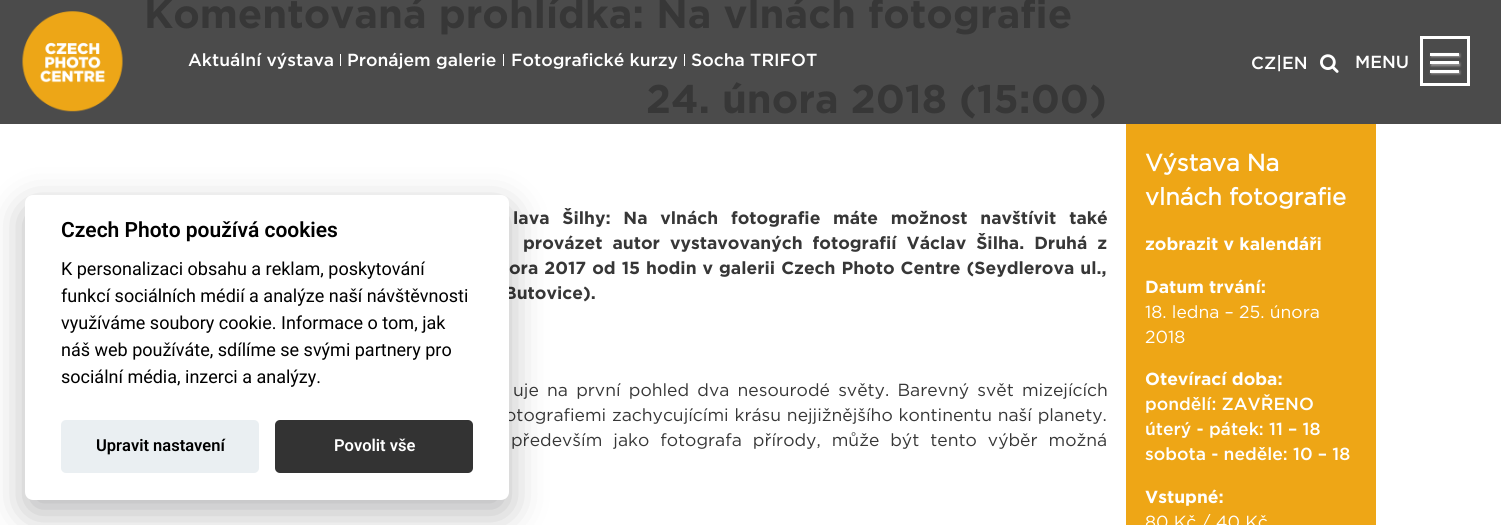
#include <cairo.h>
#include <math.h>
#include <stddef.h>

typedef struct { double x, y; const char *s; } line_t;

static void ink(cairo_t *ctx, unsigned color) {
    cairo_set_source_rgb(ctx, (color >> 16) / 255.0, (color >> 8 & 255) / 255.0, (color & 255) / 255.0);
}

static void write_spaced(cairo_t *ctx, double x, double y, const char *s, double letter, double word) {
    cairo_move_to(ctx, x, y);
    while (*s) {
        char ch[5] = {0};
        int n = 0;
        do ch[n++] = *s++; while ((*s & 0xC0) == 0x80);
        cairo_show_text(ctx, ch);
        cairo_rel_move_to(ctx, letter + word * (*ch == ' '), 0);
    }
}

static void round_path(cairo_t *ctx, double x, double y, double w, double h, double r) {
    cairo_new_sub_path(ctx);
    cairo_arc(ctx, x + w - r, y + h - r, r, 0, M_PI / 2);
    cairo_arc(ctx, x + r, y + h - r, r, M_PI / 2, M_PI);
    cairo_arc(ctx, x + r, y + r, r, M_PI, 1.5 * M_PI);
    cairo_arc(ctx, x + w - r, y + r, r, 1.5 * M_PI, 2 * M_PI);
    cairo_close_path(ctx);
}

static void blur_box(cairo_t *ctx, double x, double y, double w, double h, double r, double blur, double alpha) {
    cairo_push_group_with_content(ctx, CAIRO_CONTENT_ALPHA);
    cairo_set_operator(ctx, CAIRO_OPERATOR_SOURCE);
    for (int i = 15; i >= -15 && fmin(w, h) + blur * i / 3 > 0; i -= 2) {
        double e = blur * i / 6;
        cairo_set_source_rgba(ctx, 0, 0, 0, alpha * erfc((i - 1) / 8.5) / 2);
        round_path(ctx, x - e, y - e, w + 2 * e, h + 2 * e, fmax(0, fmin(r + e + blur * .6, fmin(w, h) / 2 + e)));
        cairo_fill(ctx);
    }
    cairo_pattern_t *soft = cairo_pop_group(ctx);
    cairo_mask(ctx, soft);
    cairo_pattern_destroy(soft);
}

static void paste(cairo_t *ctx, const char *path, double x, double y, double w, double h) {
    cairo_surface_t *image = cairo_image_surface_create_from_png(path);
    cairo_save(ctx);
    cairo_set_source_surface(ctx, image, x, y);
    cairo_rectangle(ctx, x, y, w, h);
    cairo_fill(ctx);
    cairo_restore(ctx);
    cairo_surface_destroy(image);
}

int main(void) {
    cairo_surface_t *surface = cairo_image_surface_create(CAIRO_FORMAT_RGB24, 1501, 525);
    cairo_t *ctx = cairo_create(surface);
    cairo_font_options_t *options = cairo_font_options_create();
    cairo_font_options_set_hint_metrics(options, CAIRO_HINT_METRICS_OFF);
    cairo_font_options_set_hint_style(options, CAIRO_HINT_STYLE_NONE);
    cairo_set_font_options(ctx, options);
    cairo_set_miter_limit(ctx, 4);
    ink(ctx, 0xFFFFFF);
    cairo_paint(ctx);
    ink(ctx, 0x4B4B4B);
    cairo_rectangle(ctx, 0, 0, 1501, 124);
    cairo_fill(ctx);
    cairo_select_font_face(ctx, "Gotham", CAIRO_FONT_SLANT_NORMAL, CAIRO_FONT_WEIGHT_BOLD);
    cairo_set_font_size(ctx, 40);
    ink(ctx, 0x373737);
    cairo_move_to(ctx, 144, 28);
    cairo_show_text(ctx, "Komentovaná prohlídka: Na vlnách fotografie");
    cairo_move_to(ctx, 646, 113);
    cairo_show_text(ctx, "24. února 2018 (15:00)");
    cairo_set_font_size(ctx, 17.5);
    write_spaced(ctx, 513, 224, "lava Šilhy: Na vlnách fotografie máte možnost navštívit také", 0, 7.5);
    write_spaced(ctx, 523, 249, "provázet autor vystavovaných fotografií Václav Šilha. Druhá z", 0, 4.75);
    write_spaced(ctx, 509, 274, "ora 2017 od 15 hodin v galerii Czech Photo Centre (Seydlerova ul.,", 0, 0.75);
    cairo_move_to(ctx, 504, 299);
    cairo_show_text(ctx, "Butovice).");
    ink(ctx, 0xEEA616);
    cairo_rectangle(ctx, 1126, 124, 250, 401);
    cairo_fill(ctx);
    cairo_select_font_face(ctx, "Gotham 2", CAIRO_FONT_SLANT_NORMAL, CAIRO_FONT_WEIGHT_BOLD);
    cairo_set_font_size(ctx, 23.75);
    ink(ctx, 0xFFFFFF);
    cairo_move_to(ctx, 1145, 171);
    cairo_show_text(ctx, "Výstava Na");
    cairo_move_to(ctx, 1145, 205);
    cairo_show_text(ctx, "vlnách fotografie");
    cairo_select_font_face(ctx, "Gotham", CAIRO_FONT_SLANT_NORMAL, CAIRO_FONT_WEIGHT_BOLD);
    cairo_set_font_size(ctx, 17.5);
    cairo_move_to(ctx, 1145, 250);
    cairo_show_text(ctx, "zobrazit v kalendáři");
    cairo_move_to(ctx, 1145, 293);
    cairo_show_text(ctx, "Datum trvání:");
    cairo_select_font_face(ctx, "Gotham", CAIRO_FONT_SLANT_NORMAL, CAIRO_FONT_WEIGHT_NORMAL);
    cairo_move_to(ctx, 1145, 318);
    cairo_show_text(ctx, "18. ledna – 25. února");
    cairo_move_to(ctx, 1145, 343);
    cairo_show_text(ctx, "2018");
    cairo_select_font_face(ctx, "Gotham", CAIRO_FONT_SLANT_NORMAL, CAIRO_FONT_WEIGHT_BOLD);
    cairo_move_to(ctx, 1145, 385);
    cairo_show_text(ctx, "Otevírací doba:");
    cairo_select_font_face(ctx, "Gotham Medium", CAIRO_FONT_SLANT_NORMAL, CAIRO_FONT_WEIGHT_NORMAL);
    {
        static const line_t items[] = {
            {1145, 410, "pondělí: ZAVŘENO"},
            {1145, 435, "úterý - pátek: 11 – 18"},
            {1145, 460, "sobota - neděle: 10 – 18"},
        };
        for (size_t i = 0; i < sizeof items / sizeof *items; i++) {
            cairo_move_to(ctx, items[i].x, items[i].y);
            cairo_show_text(ctx, items[i].s);
        }
    }
    cairo_select_font_face(ctx, "Gotham", CAIRO_FONT_SLANT_NORMAL, CAIRO_FONT_WEIGHT_BOLD);
    cairo_move_to(ctx, 1145, 503);
    cairo_show_text(ctx, "Vstupné:");
    cairo_select_font_face(ctx, "Gotham", CAIRO_FONT_SLANT_NORMAL, CAIRO_FONT_WEIGHT_NORMAL);
    cairo_move_to(ctx, 1145, 528);
    cairo_show_text(ctx, "80 Kč / 40 Kč");
    ink(ctx, 0x373737);
    write_spaced(ctx, 513, 396, "uje na první pohled dva nesourodé světy. Barevný svět mizejících", 0, 3);
    write_spaced(ctx, 505, 421, "otografiemi zachycujícími krásu nejjižnějšího kontinentu naší planety.", 0, 0.5);
    write_spaced(ctx, 511, 446, "především jako fotografa přírody, může být tento výběr možná", 0, 5.75);
    paste(ctx, "media/1.png", 22, 11, 101, 101);
    cairo_select_font_face(ctx, "Gotham Medium", CAIRO_FONT_SLANT_NORMAL, CAIRO_FONT_WEIGHT_NORMAL);
    ink(ctx, 0xFFFFFF);
    cairo_move_to(ctx, 188, 66);
    cairo_show_text(ctx, "Aktuální výstava");
    cairo_rectangle(ctx, 340, 54, 1, 12);
    cairo_fill(ctx);
    cairo_move_to(ctx, 347, 66);
    cairo_show_text(ctx, "Pronájem galerie");
    cairo_rectangle(ctx, 503, 54, 1, 12);
    cairo_fill(ctx);
    cairo_move_to(ctx, 511, 66);
    cairo_show_text(ctx, "Fotografické kurzy");
    cairo_rectangle(ctx, 684, 54, 1, 12);
    cairo_fill(ctx);
    cairo_move_to(ctx, 691, 66);
    cairo_show_text(ctx, "Socha TRIFOT");
    cairo_move_to(ctx, 1251, 69);
    cairo_show_text(ctx, "CZ|EN");
    paste(ctx, "media/2.png", 1320, 54, 19, 19);
    cairo_rectangle(ctx, 1421.5, 37.5, 47, 47);
    cairo_set_line_width(ctx, 3);
    cairo_stroke(ctx);
    cairo_move_to(ctx, 1355, 68);
    cairo_show_text(ctx, "MENU");
    ink(ctx, 0x999797);
    blur_box(ctx, 1431, 54, 29, 3, 0, 1, 1);
    ink(ctx, 0xFFFFFF);
    cairo_rectangle(ctx, 1430, 53, 29, 3);
    cairo_fill(ctx);
    ink(ctx, 0x999797);
    blur_box(ctx, 1431, 63, 29, 3, 0, 1, 1);
    ink(ctx, 0xFFFFFF);
    cairo_rectangle(ctx, 1430, 61, 29, 3);
    cairo_fill(ctx);
    ink(ctx, 0x999797);
    blur_box(ctx, 1431, 71, 29, 3, 0, 1, 1);
    ink(ctx, 0xFFFFFF);
    cairo_rectangle(ctx, 1430, 70, 29, 3);
    cairo_fill(ctx);
    ink(ctx, 0x020203);
    blur_box(ctx, 25, 208, 484, 305, 8, 19, 0.28);
    ink(ctx, 0xFFFFFF);
    round_path(ctx, 25, 195, 484, 305, 8);
    cairo_fill(ctx);
    cairo_select_font_face(ctx, "Roboto SemiBold", CAIRO_FONT_SLANT_NORMAL, CAIRO_FONT_WEIGHT_NORMAL);
    cairo_set_font_size(ctx, 21);
    ink(ctx, 0x000000);
    cairo_move_to(ctx, 61, 237);
    cairo_show_text(ctx, "Czech Photo používá cookies");
    cairo_select_font_face(ctx, "Roboto", CAIRO_FONT_SLANT_NORMAL, CAIRO_FONT_WEIGHT_NORMAL);
    cairo_set_font_size(ctx, 18);
    {
        static const line_t items[] = {
            {61, 275, "K personalizaci obsahu a reklam, poskytování"},
            {61, 302, "funkcí sociálních médií a analýze naší návštěvnosti"},
            {61, 329, "využíváme soubory cookie. Informace o tom, jak"},
            {61, 356, "náš web používáte, sdílíme se svými partnery pro"},
            {61, 383, "sociální média, inzerci a analýzy."},
        };
        for (size_t i = 0; i < sizeof items / sizeof *items; i++) {
            cairo_move_to(ctx, items[i].x, items[i].y);
            cairo_show_text(ctx, items[i].s);
        }
    }
    ink(ctx, 0xEAEFF2);
    round_path(ctx, 61, 420, 198, 53, 5);
    cairo_fill(ctx);
    cairo_select_font_face(ctx, "Roboto SemiBold", CAIRO_FONT_SLANT_NORMAL, CAIRO_FONT_WEIGHT_NORMAL);
    cairo_set_font_size(ctx, 16.5);
    ink(ctx, 0x000000);
    cairo_move_to(ctx, 96, 451);
    cairo_show_text(ctx, "Upravit nastavení");
    ink(ctx, 0x333333);
    round_path(ctx, 275, 420, 198, 53, 5);
    cairo_fill(ctx);
    ink(ctx, 0xFFFFFF);
    cairo_move_to(ctx, 334, 451);
    cairo_show_text(ctx, "Povolit vše");
    cairo_surface_write_to_png(surface, "image.png");
    cairo_font_options_destroy(options);
    cairo_destroy(ctx);
    cairo_surface_destroy(surface);
    return 0;
}
